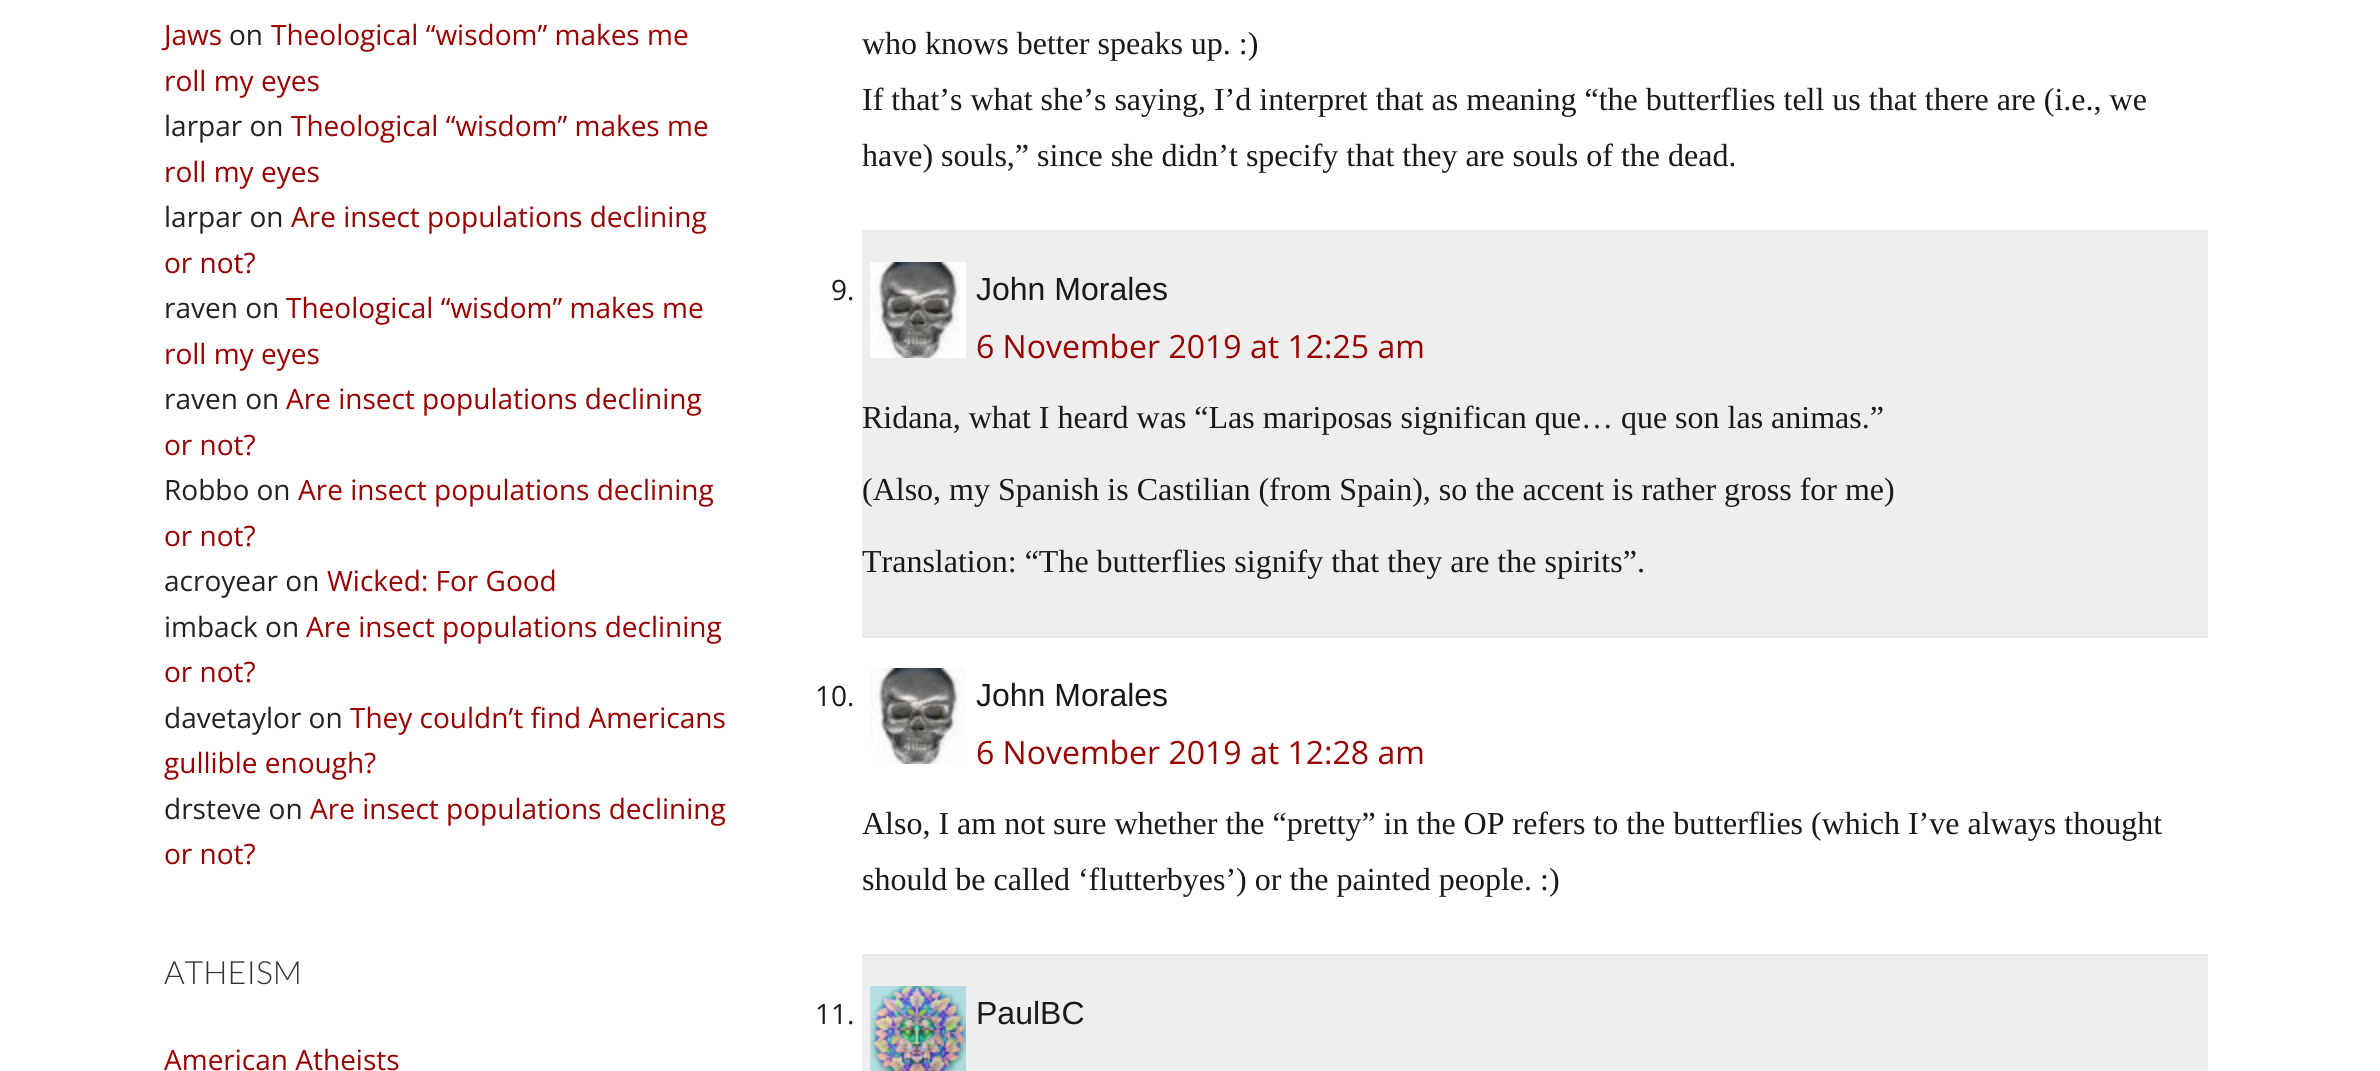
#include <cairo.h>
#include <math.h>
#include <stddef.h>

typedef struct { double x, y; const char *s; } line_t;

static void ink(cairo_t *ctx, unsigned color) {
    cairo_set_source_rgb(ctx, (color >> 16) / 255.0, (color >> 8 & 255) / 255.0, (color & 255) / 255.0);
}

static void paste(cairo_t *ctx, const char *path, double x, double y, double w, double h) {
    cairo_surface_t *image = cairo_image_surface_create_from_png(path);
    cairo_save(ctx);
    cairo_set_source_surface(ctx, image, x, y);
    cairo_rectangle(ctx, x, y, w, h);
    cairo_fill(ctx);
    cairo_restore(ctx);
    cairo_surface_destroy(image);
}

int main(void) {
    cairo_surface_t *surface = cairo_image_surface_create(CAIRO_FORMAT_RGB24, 2380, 1071);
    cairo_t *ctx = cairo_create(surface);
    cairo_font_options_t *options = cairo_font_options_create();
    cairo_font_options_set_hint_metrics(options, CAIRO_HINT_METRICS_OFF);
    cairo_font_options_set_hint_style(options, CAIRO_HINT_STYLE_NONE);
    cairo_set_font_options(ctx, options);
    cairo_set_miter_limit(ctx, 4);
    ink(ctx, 0xFFFFFF);
    cairo_paint(ctx);
    cairo_select_font_face(ctx, "Open Sans", CAIRO_FONT_SLANT_NORMAL, CAIRO_FONT_WEIGHT_NORMAL);
    cairo_set_font_size(ctx, 28);
    ink(ctx, 0x990000);
    cairo_move_to(ctx, 164, 45);
    cairo_show_text(ctx, "Jaws");
    ink(ctx, 0x222222);
    cairo_move_to(ctx, 229, 45);
    cairo_show_text(ctx, "on");
    ink(ctx, 0x990000);
    cairo_move_to(ctx, 271, 45);
    cairo_show_text(ctx, "Theological “wisdom” makes me");
    cairo_move_to(ctx, 164, 91);
    cairo_show_text(ctx, "roll my eyes");
    ink(ctx, 0x222222);
    cairo_move_to(ctx, 164, 136);
    cairo_show_text(ctx, "larpar on");
    ink(ctx, 0x990000);
    cairo_move_to(ctx, 291, 136);
    cairo_show_text(ctx, "Theological “wisdom” makes me");
    cairo_move_to(ctx, 164, 182);
    cairo_show_text(ctx, "roll my eyes");
    ink(ctx, 0x222222);
    cairo_move_to(ctx, 164, 227);
    cairo_show_text(ctx, "larpar on");
    ink(ctx, 0x990000);
    cairo_move_to(ctx, 291, 227);
    cairo_show_text(ctx, "Are insect populations declining");
    cairo_move_to(ctx, 164, 273);
    cairo_show_text(ctx, "or not?");
    ink(ctx, 0x222222);
    cairo_move_to(ctx, 164, 318);
    cairo_show_text(ctx, "raven on");
    ink(ctx, 0x990000);
    cairo_move_to(ctx, 286, 318);
    cairo_show_text(ctx, "Theological “wisdom” makes me");
    cairo_move_to(ctx, 164, 364);
    cairo_show_text(ctx, "roll my eyes");
    ink(ctx, 0x222222);
    cairo_move_to(ctx, 164, 409);
    cairo_show_text(ctx, "raven on");
    ink(ctx, 0x990000);
    cairo_move_to(ctx, 286, 409);
    cairo_show_text(ctx, "Are insect populations declining");
    cairo_move_to(ctx, 164, 455);
    cairo_show_text(ctx, "or not?");
    ink(ctx, 0x222222);
    cairo_move_to(ctx, 164, 500);
    cairo_show_text(ctx, "Robbo on");
    ink(ctx, 0x990000);
    cairo_move_to(ctx, 298, 500);
    cairo_show_text(ctx, "Are insect populations declining");
    cairo_move_to(ctx, 164, 546);
    cairo_show_text(ctx, "or not?");
    ink(ctx, 0x222222);
    cairo_move_to(ctx, 164, 591);
    cairo_show_text(ctx, "acroyear on");
    ink(ctx, 0x990000);
    cairo_move_to(ctx, 327, 591);
    cairo_show_text(ctx, "Wicked: For Good");
    ink(ctx, 0x222222);
    cairo_move_to(ctx, 164, 637);
    cairo_show_text(ctx, "imback on");
    ink(ctx, 0x990000);
    cairo_move_to(ctx, 306, 637);
    cairo_show_text(ctx, "Are insect populations declining");
    cairo_move_to(ctx, 164, 682);
    cairo_show_text(ctx, "or not?");
    ink(ctx, 0x222222);
    cairo_move_to(ctx, 164, 728);
    cairo_show_text(ctx, "davetaylor on");
    ink(ctx, 0x990000);
    cairo_move_to(ctx, 350, 728);
    cairo_show_text(ctx, "They couldn’t find Americans");
    cairo_move_to(ctx, 164, 773);
    cairo_show_text(ctx, "gullible enough?");
    ink(ctx, 0x222222);
    cairo_move_to(ctx, 164, 819);
    cairo_show_text(ctx, "drsteve on");
    ink(ctx, 0x990000);
    cairo_move_to(ctx, 310, 819);
    cairo_show_text(ctx, "Are insect populations declining");
    cairo_move_to(ctx, 164, 864);
    cairo_show_text(ctx, "or not?");
    cairo_select_font_face(ctx, "Lato Light", CAIRO_FONT_SLANT_NORMAL, CAIRO_FONT_WEIGHT_NORMAL);
    cairo_set_font_size(ctx, 32);
    ink(ctx, 0x333333);
    cairo_move_to(ctx, 164, 984);
    cairo_show_text(ctx, "ATHEISM");
    cairo_select_font_face(ctx, "Open Sans", CAIRO_FONT_SLANT_NORMAL, CAIRO_FONT_WEIGHT_NORMAL);
    cairo_set_font_size(ctx, 28);
    ink(ctx, 0x990000);
    cairo_move_to(ctx, 164, 1070);
    cairo_show_text(ctx, "American Atheists");
    ink(ctx, 0xE9E9E9);
    cairo_rectangle(ctx, 862, 230, 1346, 2);
    cairo_fill(ctx);
    cairo_select_font_face(ctx, "Liberation Serif", CAIRO_FONT_SLANT_NORMAL, CAIRO_FONT_WEIGHT_NORMAL);
    cairo_set_font_size(ctx, 32);
    ink(ctx, 0x191919);
    {
        static const line_t items[] = {
            {862, 54, "who knows better speaks up. :)"},
            {862, 110, "If that’s what she’s saying, I’d interpret that as meaning “the butterflies tell us that there are (i.e., we"},
            {862, 166, "have) souls,” since she didn’t specify that they are souls of the dead."},
        };
        for (size_t i = 0; i < sizeof items / sizeof *items; i++) {
            cairo_move_to(ctx, items[i].x, items[i].y);
            cairo_show_text(ctx, items[i].s);
        }
    }
    ink(ctx, 0xEEEEEE);
    cairo_rectangle(ctx, 862, 232, 1346, 404);
    cairo_fill(ctx);
    ink(ctx, 0xE9E9E9);
    cairo_rectangle(ctx, 862, 636, 1346, 2);
    cairo_fill(ctx);
    cairo_select_font_face(ctx, "Open Sans", CAIRO_FONT_SLANT_NORMAL, CAIRO_FONT_WEIGHT_NORMAL);
    cairo_set_font_size(ctx, 28);
    ink(ctx, 0x191919);
    cairo_move_to(ctx, 831, 300);
    cairo_show_text(ctx, "9.");
    paste(ctx, "media/1.png", 870, 262, 96, 96);
    cairo_select_font_face(ctx, "Liberation Sans", CAIRO_FONT_SLANT_NORMAL, CAIRO_FONT_WEIGHT_NORMAL);
    cairo_set_font_size(ctx, 32);
    cairo_move_to(ctx, 976, 300);
    cairo_show_text(ctx, "John Morales");
    cairo_select_font_face(ctx, "Open Sans", CAIRO_FONT_SLANT_NORMAL, CAIRO_FONT_WEIGHT_NORMAL);
    ink(ctx, 0x990000);
    cairo_move_to(ctx, 976, 358);
    cairo_show_text(ctx, "6 November 2019 at 12:25 am");
    cairo_select_font_face(ctx, "Liberation Serif", CAIRO_FONT_SLANT_NORMAL, CAIRO_FONT_WEIGHT_NORMAL);
    ink(ctx, 0x191919);
    {
        static const line_t items[] = {
            {862, 428, "Ridana, what I heard was “Las mariposas significan que… que son las animas.”"},
            {862, 500, "(Also, my Spanish is Castilian (from Spain), so the accent is rather gross for me)"},
            {862, 572, "Translation: “The butterflies signify that they are the spirits”."},
        };
        for (size_t i = 0; i < sizeof items / sizeof *items; i++) {
            cairo_move_to(ctx, items[i].x, items[i].y);
            cairo_show_text(ctx, items[i].s);
        }
    }
    ink(ctx, 0xE9E9E9);
    cairo_rectangle(ctx, 862, 954, 1346, 2);
    cairo_fill(ctx);
    cairo_select_font_face(ctx, "Open Sans", CAIRO_FONT_SLANT_NORMAL, CAIRO_FONT_WEIGHT_NORMAL);
    cairo_set_font_size(ctx, 28);
    ink(ctx, 0x191919);
    cairo_move_to(ctx, 815, 706);
    cairo_show_text(ctx, "10.");
    paste(ctx, "media/1.png", 870, 668, 96, 96);
    cairo_select_font_face(ctx, "Liberation Sans", CAIRO_FONT_SLANT_NORMAL, CAIRO_FONT_WEIGHT_NORMAL);
    cairo_set_font_size(ctx, 32);
    cairo_move_to(ctx, 976, 706);
    cairo_show_text(ctx, "John Morales");
    cairo_select_font_face(ctx, "Open Sans", CAIRO_FONT_SLANT_NORMAL, CAIRO_FONT_WEIGHT_NORMAL);
    ink(ctx, 0x990000);
    cairo_move_to(ctx, 976, 764);
    cairo_show_text(ctx, "6 November 2019 at 12:28 am");
    cairo_select_font_face(ctx, "Liberation Serif", CAIRO_FONT_SLANT_NORMAL, CAIRO_FONT_WEIGHT_NORMAL);
    ink(ctx, 0x191919);
    cairo_move_to(ctx, 862, 834);
    cairo_show_text(ctx, "Also, I am not sure whether the “pretty” in the OP refers to the butterflies (which I’ve always thought");
    cairo_move_to(ctx, 862, 890);
    cairo_show_text(ctx, "should be called ‘flutterbyes’) or the painted people. :)");
    ink(ctx, 0xEEEEEE);
    cairo_rectangle(ctx, 862, 956, 1346, 115);
    cairo_fill(ctx);
    cairo_select_font_face(ctx, "Open Sans", CAIRO_FONT_SLANT_NORMAL, CAIRO_FONT_WEIGHT_NORMAL);
    cairo_set_font_size(ctx, 28);
    ink(ctx, 0x191919);
    cairo_move_to(ctx, 815, 1024);
    cairo_show_text(ctx, "11.");
    paste(ctx, "media/2.png", 870, 986, 96, 85);
    cairo_select_font_face(ctx, "Liberation Sans", CAIRO_FONT_SLANT_NORMAL, CAIRO_FONT_WEIGHT_NORMAL);
    cairo_set_font_size(ctx, 32);
    cairo_move_to(ctx, 976, 1024);
    cairo_show_text(ctx, "PaulBC");
    cairo_surface_write_to_png(surface, "image.png");
    cairo_font_options_destroy(options);
    cairo_destroy(ctx);
    cairo_surface_destroy(surface);
    return 0;
}
